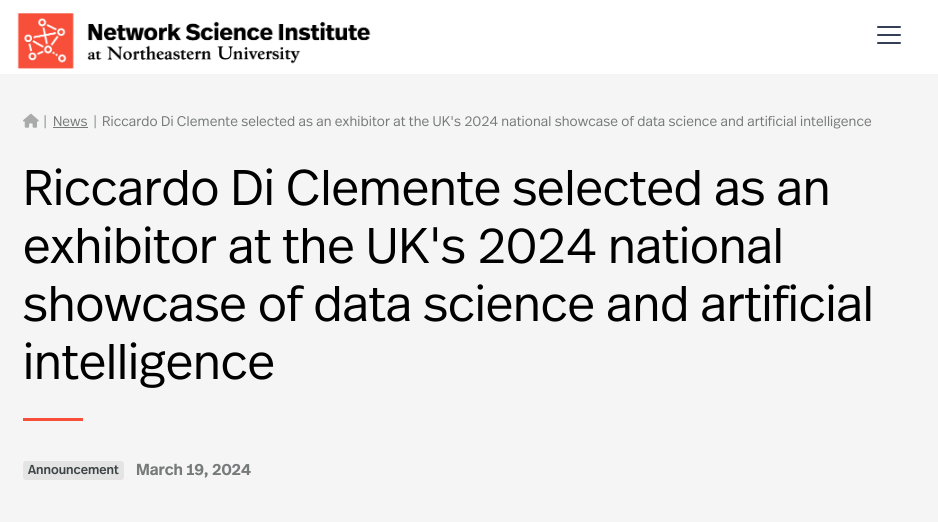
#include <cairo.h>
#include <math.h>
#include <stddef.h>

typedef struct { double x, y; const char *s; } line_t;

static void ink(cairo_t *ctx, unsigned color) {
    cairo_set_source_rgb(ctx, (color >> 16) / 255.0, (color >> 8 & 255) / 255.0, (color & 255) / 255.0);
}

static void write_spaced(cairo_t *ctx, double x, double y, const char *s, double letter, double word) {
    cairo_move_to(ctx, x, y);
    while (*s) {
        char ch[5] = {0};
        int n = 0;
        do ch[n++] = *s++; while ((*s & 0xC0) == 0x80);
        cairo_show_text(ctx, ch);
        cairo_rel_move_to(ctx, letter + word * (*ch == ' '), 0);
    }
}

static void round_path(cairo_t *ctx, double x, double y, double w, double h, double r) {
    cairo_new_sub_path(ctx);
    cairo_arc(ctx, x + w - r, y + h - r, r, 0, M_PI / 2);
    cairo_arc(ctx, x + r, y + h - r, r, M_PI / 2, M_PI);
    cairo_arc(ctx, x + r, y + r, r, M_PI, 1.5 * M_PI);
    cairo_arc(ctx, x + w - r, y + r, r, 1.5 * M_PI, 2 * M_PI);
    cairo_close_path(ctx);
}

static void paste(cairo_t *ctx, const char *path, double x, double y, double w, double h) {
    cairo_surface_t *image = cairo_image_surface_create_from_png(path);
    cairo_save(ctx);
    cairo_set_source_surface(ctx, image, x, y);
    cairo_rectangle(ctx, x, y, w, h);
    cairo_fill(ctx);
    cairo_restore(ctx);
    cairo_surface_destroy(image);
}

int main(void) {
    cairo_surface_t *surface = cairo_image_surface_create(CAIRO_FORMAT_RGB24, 938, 522);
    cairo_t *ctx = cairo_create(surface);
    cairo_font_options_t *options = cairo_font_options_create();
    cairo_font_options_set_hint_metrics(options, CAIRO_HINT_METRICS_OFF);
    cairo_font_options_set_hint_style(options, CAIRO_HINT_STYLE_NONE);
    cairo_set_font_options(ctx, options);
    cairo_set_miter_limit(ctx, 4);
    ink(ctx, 0xFFFFFF);
    cairo_paint(ctx);
    paste(ctx, "media/1.png", 17, 13, 354, 56);
    ink(ctx, 0x344054);
    round_path(ctx, 877, 26, 24, 2, 1);
    cairo_fill(ctx);
    round_path(ctx, 877, 34, 24, 2, 1);
    cairo_fill(ctx);
    round_path(ctx, 877, 42, 24, 2, 1);
    cairo_fill(ctx);
    ink(ctx, 0xF5F5F5);
    cairo_rectangle(ctx, 0, 74, 938, 448);
    cairo_fill(ctx);
    paste(ctx, "media/2.png", 23, 113, 16, 15);
    cairo_select_font_face(ctx, "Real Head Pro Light", CAIRO_FONT_SLANT_NORMAL, CAIRO_FONT_WEIGHT_NORMAL);
    cairo_set_font_size(ctx, 14);
    ink(ctx, 0x777A7A);
    write_spaced(ctx, 43, 126, "|", 0.1, 0);
    cairo_move_to(ctx, 53, 126);
    cairo_show_text(ctx, "News");
    cairo_rectangle(ctx, 53, 127, 35, 1);
    cairo_fill(ctx);
    write_spaced(ctx, 93, 126, "|", 0.1, 0);
    write_spaced(ctx, 102, 126, "Riccardo Di Clemente selected as an exhibitor at the UK's 2024 national showcase of data science and artificial intelligence", 0.1, 0);
    cairo_set_font_size(ctx, 50);
    ink(ctx, 0x000000);
    {
        static const line_t items[] = {
            {23, 205, "Riccardo Di Clemente selected as an"},
            {23, 263, "exhibitor at the UK's 2024 national"},
            {23, 321, "showcase of data science and artificial"},
            {23, 379, "intelligence"},
        };
        for (size_t i = 0; i < sizeof items / sizeof *items; i++) {
            cairo_move_to(ctx, items[i].x, items[i].y);
            cairo_show_text(ctx, items[i].s);
        }
    }
    ink(ctx, 0xF74F3A);
    cairo_rectangle(ctx, 23, 418, 60, 3);
    cairo_fill(ctx);
    ink(ctx, 0xE4E4E4);
    round_path(ctx, 23, 461, 101, 19, 3);
    cairo_fill(ctx);
    cairo_select_font_face(ctx, "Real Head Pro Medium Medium", CAIRO_FONT_SLANT_NORMAL, CAIRO_FONT_WEIGHT_NORMAL);
    cairo_set_font_size(ctx, 13);
    ink(ctx, 0x3D4446);
    cairo_move_to(ctx, 28, 474);
    cairo_show_text(ctx, "Announcement");
    cairo_select_font_face(ctx, "Real Head Pro SemiBold", CAIRO_FONT_SLANT_NORMAL, CAIRO_FONT_WEIGHT_NORMAL);
    cairo_set_font_size(ctx, 16);
    ink(ctx, 0x777A7A);
    cairo_move_to(ctx, 136, 475);
    cairo_show_text(ctx, "March 19, 2024");
    cairo_surface_write_to_png(surface, "image.png");
    cairo_font_options_destroy(options);
    cairo_destroy(ctx);
    cairo_surface_destroy(surface);
    return 0;
}
